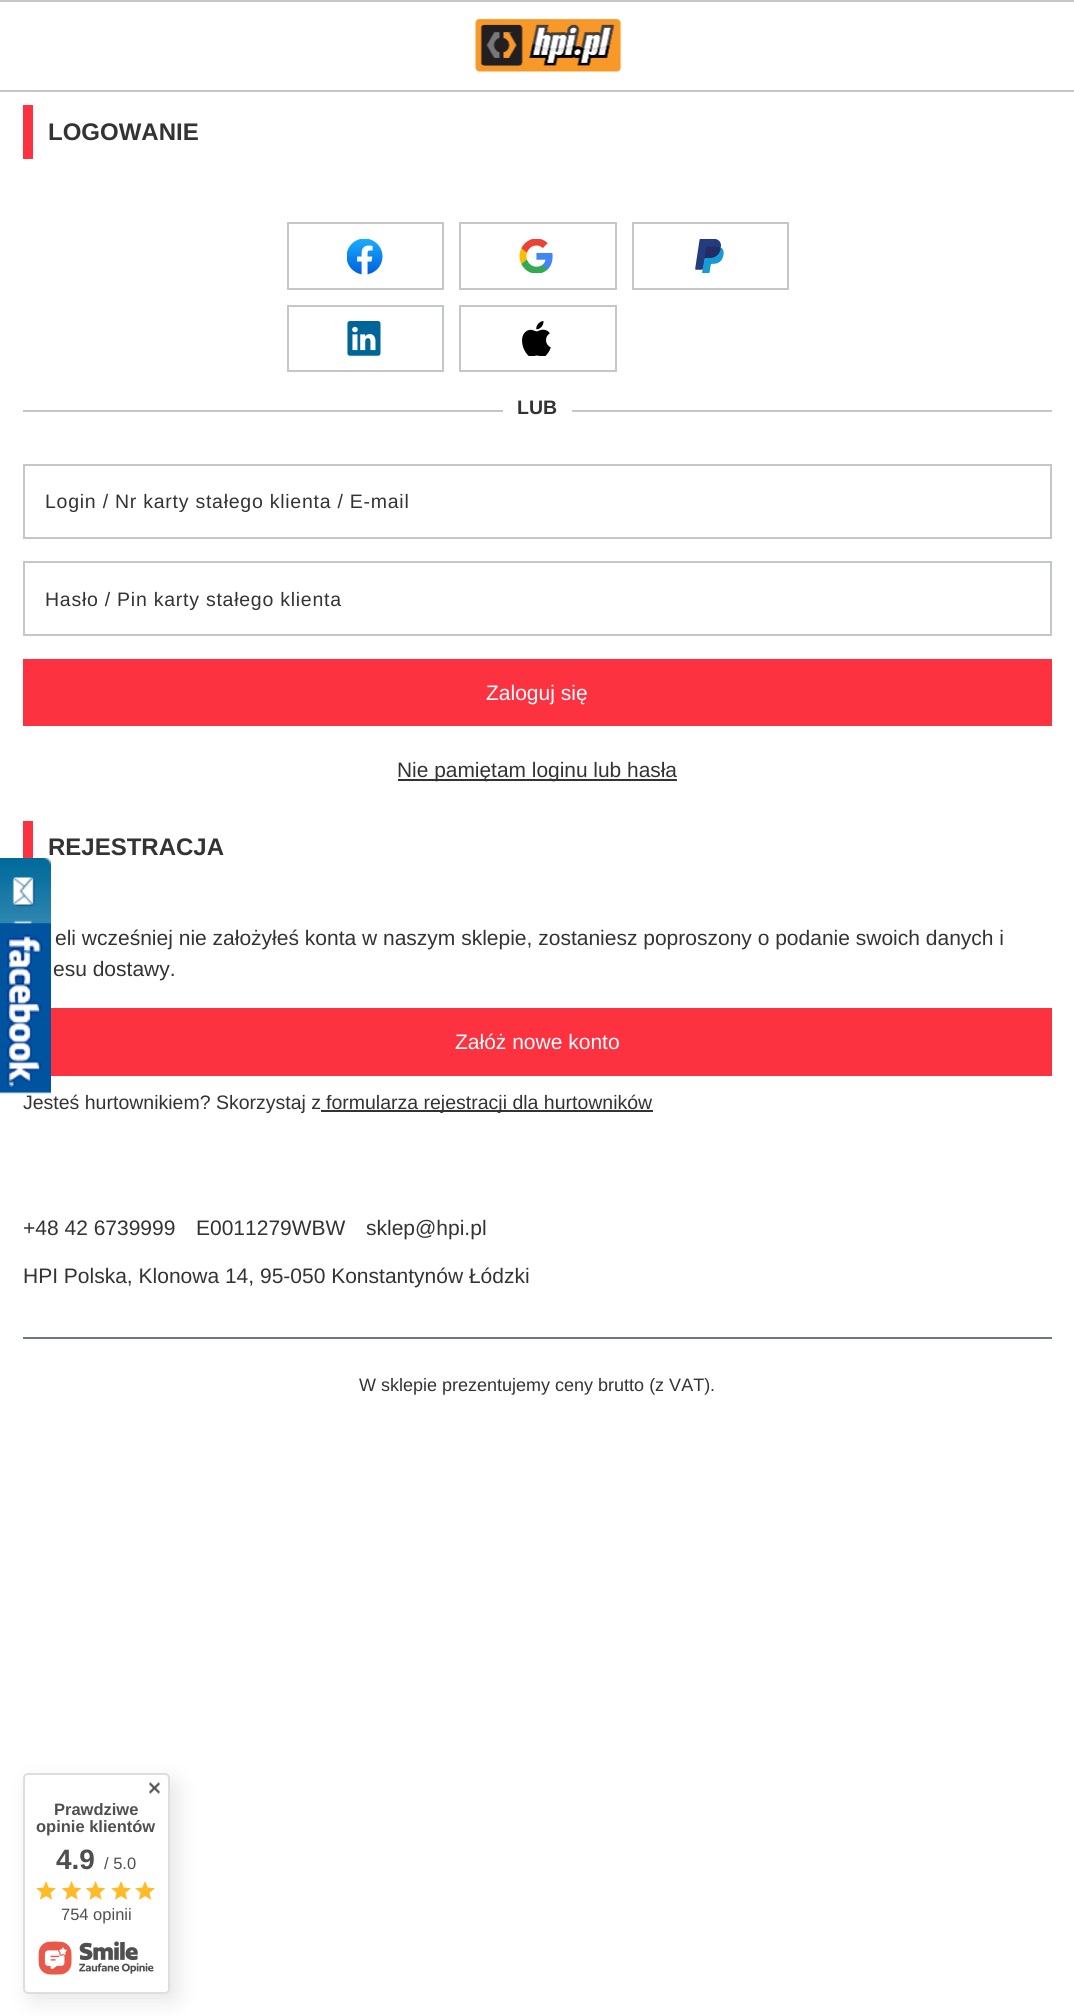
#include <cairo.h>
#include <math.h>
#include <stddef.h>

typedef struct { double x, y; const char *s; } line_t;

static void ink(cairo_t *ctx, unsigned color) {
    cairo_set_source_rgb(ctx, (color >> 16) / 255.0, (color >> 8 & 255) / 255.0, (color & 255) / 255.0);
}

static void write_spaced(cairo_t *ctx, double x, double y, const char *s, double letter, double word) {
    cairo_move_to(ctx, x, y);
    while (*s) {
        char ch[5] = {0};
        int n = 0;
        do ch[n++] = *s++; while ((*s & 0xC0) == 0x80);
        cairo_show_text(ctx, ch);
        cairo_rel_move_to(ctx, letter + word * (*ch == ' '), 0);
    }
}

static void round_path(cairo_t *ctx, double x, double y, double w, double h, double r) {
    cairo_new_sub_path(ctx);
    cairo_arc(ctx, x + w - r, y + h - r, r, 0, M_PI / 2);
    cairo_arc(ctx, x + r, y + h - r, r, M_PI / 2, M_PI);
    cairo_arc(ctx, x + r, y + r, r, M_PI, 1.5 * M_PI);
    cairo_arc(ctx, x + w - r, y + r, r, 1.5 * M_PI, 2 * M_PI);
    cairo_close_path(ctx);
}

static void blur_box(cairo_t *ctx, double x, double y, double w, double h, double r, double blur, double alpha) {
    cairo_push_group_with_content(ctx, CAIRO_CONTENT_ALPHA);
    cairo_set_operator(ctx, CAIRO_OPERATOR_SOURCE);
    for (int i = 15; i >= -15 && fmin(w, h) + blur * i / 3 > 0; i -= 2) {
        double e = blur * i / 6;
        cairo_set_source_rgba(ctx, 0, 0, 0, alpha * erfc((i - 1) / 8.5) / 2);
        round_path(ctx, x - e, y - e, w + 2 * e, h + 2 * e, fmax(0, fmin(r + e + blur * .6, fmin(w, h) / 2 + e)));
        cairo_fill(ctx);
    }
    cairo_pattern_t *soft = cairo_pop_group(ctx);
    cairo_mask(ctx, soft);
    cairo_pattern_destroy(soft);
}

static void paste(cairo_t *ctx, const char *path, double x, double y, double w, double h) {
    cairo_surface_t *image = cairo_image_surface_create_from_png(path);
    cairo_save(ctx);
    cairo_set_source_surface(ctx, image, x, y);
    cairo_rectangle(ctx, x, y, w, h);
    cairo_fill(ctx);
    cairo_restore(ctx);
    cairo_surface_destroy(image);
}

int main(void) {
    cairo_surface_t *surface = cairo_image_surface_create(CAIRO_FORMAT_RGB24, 1074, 2016);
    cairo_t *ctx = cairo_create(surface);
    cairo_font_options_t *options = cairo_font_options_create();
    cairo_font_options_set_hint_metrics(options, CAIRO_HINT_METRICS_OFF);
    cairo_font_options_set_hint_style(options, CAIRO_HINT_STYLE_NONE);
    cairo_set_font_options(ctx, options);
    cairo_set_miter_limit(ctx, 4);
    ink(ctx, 0xFFFFFF);
    cairo_paint(ctx);
    ink(ctx, 0xC4C7C8);
    cairo_rectangle(ctx, 0, 90, 1074, 2);
    cairo_fill(ctx);
    cairo_rectangle(ctx, 0, 0, 1074, 2);
    cairo_fill(ctx);
    paste(ctx, "media/1.png", 475, 19, 147, 53);
    ink(ctx, 0xFC3240);
    cairo_rectangle(ctx, 23, 105, 10, 54);
    cairo_fill(ctx);
    cairo_select_font_face(ctx, "Liberation Sans", CAIRO_FONT_SLANT_NORMAL, CAIRO_FONT_WEIGHT_BOLD);
    cairo_set_font_size(ctx, 24);
    ink(ctx, 0x333333);
    cairo_move_to(ctx, 48, 140);
    cairo_show_text(ctx, "LOGOWANIE");
    cairo_rectangle(ctx, 288, 223, 155, 66);
    ink(ctx, 0xC4C7C8);
    cairo_stroke(ctx);
    paste(ctx, "media/2.png", 347, 239, 36, 36);
    cairo_rectangle(ctx, 460, 223, 156, 66);
    cairo_stroke(ctx);
    paste(ctx, "media/3.png", 519, 239, 34, 34);
    cairo_rectangle(ctx, 633, 223, 155, 66);
    cairo_stroke(ctx);
    paste(ctx, "media/4.png", 695, 239, 29, 34);
    cairo_rectangle(ctx, 288, 306, 155, 65);
    cairo_stroke(ctx);
    paste(ctx, "media/5.png", 347, 321, 34, 35);
    cairo_rectangle(ctx, 460, 306, 156, 65);
    cairo_stroke(ctx);
    paste(ctx, "media/6.png", 522, 321, 29, 35);
    cairo_rectangle(ctx, 23, 410, 1029, 2);
    cairo_fill(ctx);
    ink(ctx, 0xFFFFFF);
    cairo_rectangle(ctx, 503, 410, 69, 2);
    cairo_fill(ctx);
    cairo_set_font_size(ctx, 19.5);
    ink(ctx, 0x333333);
    cairo_move_to(ctx, 517, 414);
    cairo_show_text(ctx, "LUB");
    cairo_rectangle(ctx, 24, 465, 1027, 73);
    ink(ctx, 0xC4C7C8);
    cairo_stroke(ctx);
    cairo_select_font_face(ctx, "Liberation Sans", CAIRO_FONT_SLANT_NORMAL, CAIRO_FONT_WEIGHT_NORMAL);
    ink(ctx, 0x333333);
    write_spaced(ctx, 45, 508, "Login / Nr karty stałego klienta / E-mail", 0.75, 0);
    cairo_rectangle(ctx, 24, 562, 1027, 73);
    ink(ctx, 0xC4C7C8);
    cairo_stroke(ctx);
    ink(ctx, 0x333333);
    write_spaced(ctx, 45, 606, "Hasło / Pin karty stałego klienta", 0.75, 0);
    ink(ctx, 0xFC3240);
    cairo_rectangle(ctx, 23, 659, 1029, 67);
    cairo_fill(ctx);
    cairo_set_font_size(ctx, 21);
    ink(ctx, 0xFFFFFF);
    cairo_move_to(ctx, 486, 700);
    cairo_show_text(ctx, "Zaloguj się");
    ink(ctx, 0x333333);
    cairo_rectangle(ctx, 398, 779, 279, 2);
    cairo_fill(ctx);
    cairo_set_font_size(ctx, 20.9);
    cairo_move_to(ctx, 397, 777);
    cairo_show_text(ctx, "Nie pamiętam loginu lub hasła");
    ink(ctx, 0xFC3240);
    cairo_rectangle(ctx, 23, 821, 10, 37);
    cairo_fill(ctx);
    cairo_select_font_face(ctx, "Liberation Sans", CAIRO_FONT_SLANT_NORMAL, CAIRO_FONT_WEIGHT_BOLD);
    cairo_set_font_size(ctx, 24);
    ink(ctx, 0x333333);
    cairo_move_to(ctx, 48, 855);
    cairo_show_text(ctx, "REJESTRACJA");
    cairo_select_font_face(ctx, "Liberation Sans", CAIRO_FONT_SLANT_NORMAL, CAIRO_FONT_WEIGHT_NORMAL);
    cairo_set_font_size(ctx, 21);
    cairo_move_to(ctx, 55, 945);
    cairo_show_text(ctx, "eli wcześniej nie założyłeś konta w naszym sklepie, zostaniesz poproszony o podanie swoich danych i");
    cairo_move_to(ctx, 53, 976);
    cairo_show_text(ctx, "esu dostawy.");
    ink(ctx, 0xFC3240);
    cairo_rectangle(ctx, 51, 1008, 1001, 68);
    cairo_fill(ctx);
    ink(ctx, 0xFFFFFF);
    cairo_move_to(ctx, 455, 1049);
    cairo_show_text(ctx, "Załóż nowe konto");
    cairo_set_font_size(ctx, 19.5);
    ink(ctx, 0x333333);
    cairo_move_to(ctx, 23, 1109);
    cairo_show_text(ctx, "Jesteś hurtownikiem? Skorzystaj z");
    cairo_rectangle(ctx, 321, 1110, 332, 2);
    cairo_fill(ctx);
    cairo_move_to(ctx, 326, 1109);
    cairo_show_text(ctx, "formularza rejestracji dla hurtowników");
    paste(ctx, "media/7.png", 0, 858, 51, 66);
    paste(ctx, "media/8.png", 0, 923, 51, 171);
    ink(ctx, 0x6B7785);
    cairo_rectangle(ctx, 23, 1337, 1029, 2);
    cairo_fill(ctx);
    cairo_set_font_size(ctx, 21);
    ink(ctx, 0x333333);
    {
        static const line_t items[] = {
            {23, 1235, "+48 42 6739999"},
            {196, 1235, "E0011279WBW"},
            {366, 1235, "sklep@hpi.pl"},
            {23, 1283, "HPI Polska, Klonowa 14, 95-050 Konstantynów Łódzki"},
        };
        for (size_t i = 0; i < sizeof items / sizeof *items; i++) {
            cairo_move_to(ctx, items[i].x, items[i].y);
            cairo_show_text(ctx, items[i].s);
        }
    }
    cairo_set_font_size(ctx, 18);
    cairo_move_to(ctx, 359, 1391);
    cairo_show_text(ctx, "W sklepie prezentujemy ceny brutto (z VAT).");
    ink(ctx, 0x000000);
    blur_box(ctx, 30, 1781, 147, 220, 5, 11, 0.1);
    ink(ctx, 0xFFFFFF);
    round_path(ctx, 24, 1774, 145, 219, 4);
    cairo_fill_preserve(ctx);
    ink(ctx, 0xDEDEDE);
    cairo_stroke(ctx);
    paste(ctx, "media/9.png", 149, 1782, 11, 12);
    cairo_select_font_face(ctx, "Liberation Sans", CAIRO_FONT_SLANT_NORMAL, CAIRO_FONT_WEIGHT_BOLD);
    cairo_set_font_size(ctx, 16.5);
    ink(ctx, 0x4F4F4F);
    cairo_move_to(ctx, 54, 1815);
    cairo_show_text(ctx, "Prawdziwe");
    cairo_move_to(ctx, 36, 1832);
    cairo_show_text(ctx, "opinie klientów");
    cairo_set_font_size(ctx, 28);
    cairo_move_to(ctx, 56, 1869);
    cairo_show_text(ctx, "4.9");
    cairo_select_font_face(ctx, "Liberation Sans", CAIRO_FONT_SLANT_NORMAL, CAIRO_FONT_WEIGHT_NORMAL);
    cairo_set_font_size(ctx, 16.5);
    cairo_move_to(ctx, 104, 1869);
    cairo_show_text(ctx, "/ 5.0");
    paste(ctx, "media/10.png", 36, 1881, 20, 19);
    paste(ctx, "media/11.png", 62, 1881, 19, 19);
    paste(ctx, "media/12.png", 86, 1881, 20, 19);
    paste(ctx, "media/10.png", 111, 1881, 20, 19);
    paste(ctx, "media/10.png", 135, 1881, 20, 19);
    cairo_move_to(ctx, 61, 1920);
    cairo_show_text(ctx, "754 opinii");
    paste(ctx, "media/13.png", 38, 1941, 116, 34);
    cairo_surface_write_to_png(surface, "image.png");
    cairo_font_options_destroy(options);
    cairo_destroy(ctx);
    cairo_surface_destroy(surface);
    return 0;
}
